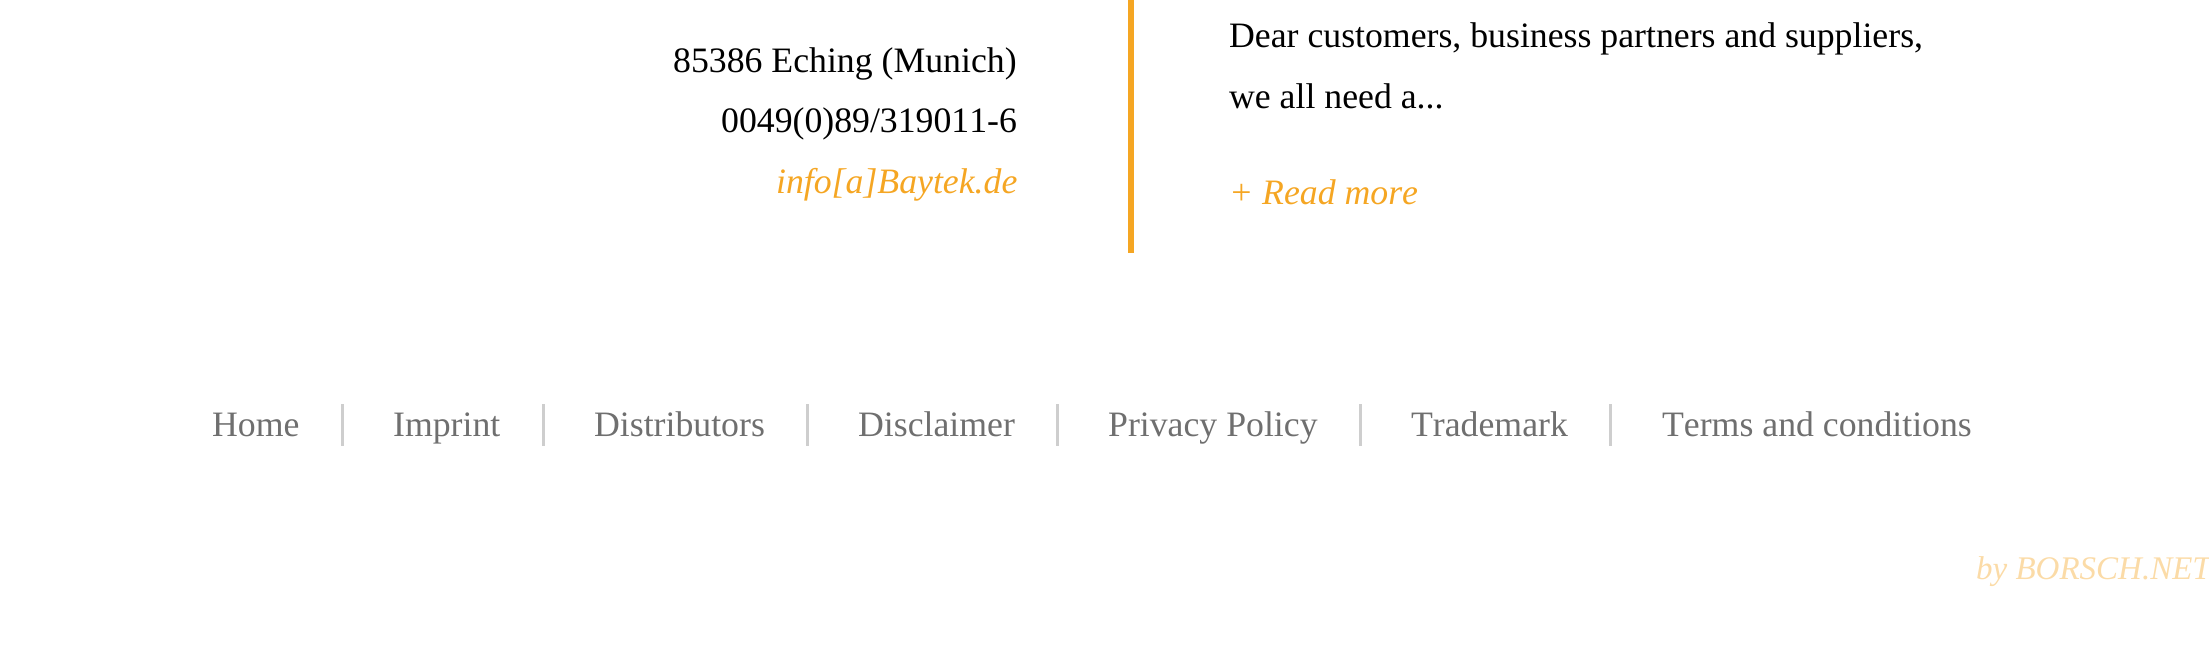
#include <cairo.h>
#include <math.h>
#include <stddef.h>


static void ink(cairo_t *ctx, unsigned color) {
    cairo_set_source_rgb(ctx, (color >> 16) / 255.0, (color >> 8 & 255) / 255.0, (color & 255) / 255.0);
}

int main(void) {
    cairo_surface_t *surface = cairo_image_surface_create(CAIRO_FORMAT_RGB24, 2209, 658);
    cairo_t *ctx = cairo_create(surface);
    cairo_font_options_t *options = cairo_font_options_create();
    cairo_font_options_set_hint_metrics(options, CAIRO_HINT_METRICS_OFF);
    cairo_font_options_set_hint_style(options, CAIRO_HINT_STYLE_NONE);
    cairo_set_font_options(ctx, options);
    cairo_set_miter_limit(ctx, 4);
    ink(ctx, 0xFFFFFF);
    cairo_paint(ctx);
    ink(ctx, 0xF5A623);
    cairo_rectangle(ctx, 1128, 0, 6, 253);
    cairo_fill(ctx);
    cairo_select_font_face(ctx, "Liberation Serif", CAIRO_FONT_SLANT_NORMAL, CAIRO_FONT_WEIGHT_NORMAL);
    cairo_set_font_size(ctx, 35.75);
    ink(ctx, 0x000000);
    cairo_move_to(ctx, 673, 72);
    cairo_show_text(ctx, "85386 Eching (Munich)");
    cairo_move_to(ctx, 721, 132);
    cairo_show_text(ctx, "0049(0)89/319011-6");
    cairo_select_font_face(ctx, "Liberation Serif", CAIRO_FONT_SLANT_ITALIC, CAIRO_FONT_WEIGHT_NORMAL);
    ink(ctx, 0xF5A623);
    cairo_move_to(ctx, 776, 193);
    cairo_show_text(ctx, "info[a]Baytek.de");
    cairo_select_font_face(ctx, "Liberation Serif", CAIRO_FONT_SLANT_NORMAL, CAIRO_FONT_WEIGHT_NORMAL);
    ink(ctx, 0x000000);
    cairo_move_to(ctx, 1229, 47);
    cairo_show_text(ctx, "Dear customers, business partners and suppliers,");
    cairo_move_to(ctx, 1229, 108);
    cairo_show_text(ctx, "we all need a...");
    cairo_select_font_face(ctx, "Liberation Serif", CAIRO_FONT_SLANT_ITALIC, CAIRO_FONT_WEIGHT_NORMAL);
    ink(ctx, 0xF5A623);
    cairo_move_to(ctx, 1229, 204);
    cairo_show_text(ctx, "+ Read more");
    cairo_select_font_face(ctx, "Liberation Serif", CAIRO_FONT_SLANT_NORMAL, CAIRO_FONT_WEIGHT_NORMAL);
    ink(ctx, 0x6F6F6F);
    cairo_move_to(ctx, 212, 436);
    cairo_show_text(ctx, "Home");
    ink(ctx, 0xCECECE);
    cairo_rectangle(ctx, 341, 404, 3, 42);
    cairo_fill(ctx);
    ink(ctx, 0x6F6F6F);
    cairo_move_to(ctx, 393, 436);
    cairo_show_text(ctx, "Imprint");
    ink(ctx, 0xCECECE);
    cairo_rectangle(ctx, 542, 404, 3, 42);
    cairo_fill(ctx);
    ink(ctx, 0x6F6F6F);
    cairo_move_to(ctx, 594, 436);
    cairo_show_text(ctx, "Distributors");
    ink(ctx, 0xCECECE);
    cairo_rectangle(ctx, 806, 404, 3, 42);
    cairo_fill(ctx);
    ink(ctx, 0x6F6F6F);
    cairo_move_to(ctx, 858, 436);
    cairo_show_text(ctx, "Disclaimer");
    ink(ctx, 0xCECECE);
    cairo_rectangle(ctx, 1056, 404, 3, 42);
    cairo_fill(ctx);
    ink(ctx, 0x6F6F6F);
    cairo_move_to(ctx, 1108, 436);
    cairo_show_text(ctx, "Privacy Policy");
    ink(ctx, 0xCECECE);
    cairo_rectangle(ctx, 1359, 404, 3, 42);
    cairo_fill(ctx);
    ink(ctx, 0x6F6F6F);
    cairo_move_to(ctx, 1411, 436);
    cairo_show_text(ctx, "Trademark");
    ink(ctx, 0xCECECE);
    cairo_rectangle(ctx, 1609, 404, 3, 42);
    cairo_fill(ctx);
    ink(ctx, 0x6F6F6F);
    cairo_move_to(ctx, 1662, 436);
    cairo_show_text(ctx, "Terms and conditions");
    cairo_select_font_face(ctx, "Liberation Serif", CAIRO_FONT_SLANT_ITALIC, CAIRO_FONT_WEIGHT_NORMAL);
    cairo_set_font_size(ctx, 33);
    ink(ctx, 0xFBDBA7);
    cairo_move_to(ctx, 1976, 579);
    cairo_show_text(ctx, "by BORSCH.NET");
    cairo_surface_write_to_png(surface, "image.png");
    cairo_font_options_destroy(options);
    cairo_destroy(ctx);
    cairo_surface_destroy(surface);
    return 0;
}
